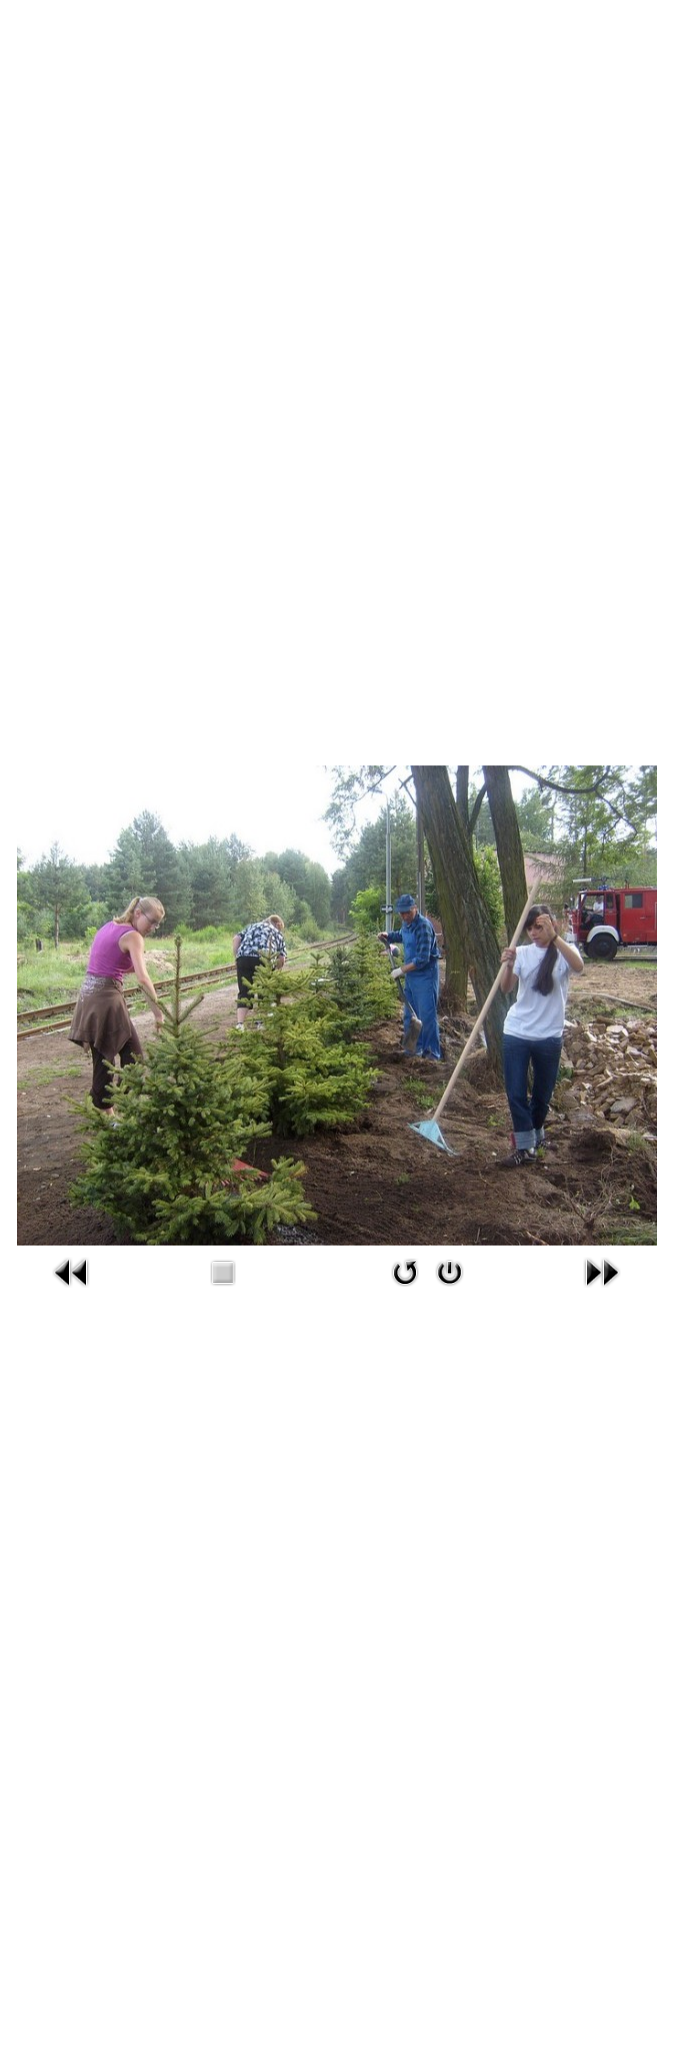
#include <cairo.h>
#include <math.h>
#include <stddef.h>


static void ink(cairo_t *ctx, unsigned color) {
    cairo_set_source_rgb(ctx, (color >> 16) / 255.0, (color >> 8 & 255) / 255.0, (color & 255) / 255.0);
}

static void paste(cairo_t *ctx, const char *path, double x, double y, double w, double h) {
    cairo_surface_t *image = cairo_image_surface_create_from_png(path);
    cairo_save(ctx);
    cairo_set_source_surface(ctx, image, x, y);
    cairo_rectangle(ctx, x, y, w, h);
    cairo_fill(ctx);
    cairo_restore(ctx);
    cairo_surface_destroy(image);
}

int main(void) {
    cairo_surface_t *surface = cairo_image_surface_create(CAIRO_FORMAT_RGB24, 674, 2051);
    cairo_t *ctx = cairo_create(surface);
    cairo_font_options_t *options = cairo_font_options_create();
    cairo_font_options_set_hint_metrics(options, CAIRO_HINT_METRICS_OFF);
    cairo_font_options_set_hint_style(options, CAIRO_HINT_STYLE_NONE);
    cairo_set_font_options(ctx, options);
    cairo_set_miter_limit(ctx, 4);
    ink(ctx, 0xFFFFFF);
    cairo_paint(ctx);
    paste(ctx, "media/1.png", 17, 765, 640, 481);
    paste(ctx, "media/2.png", 52, 1257, 38, 31);
    paste(ctx, "media/3.png", 210, 1259, 26, 28);
    paste(ctx, "media/4.png", 391, 1258, 28, 29);
    paste(ctx, "media/5.png", 435, 1259, 29, 28);
    paste(ctx, "media/6.png", 583, 1257, 38, 31);
    cairo_surface_write_to_png(surface, "image.png");
    cairo_font_options_destroy(options);
    cairo_destroy(ctx);
    cairo_surface_destroy(surface);
    return 0;
}
